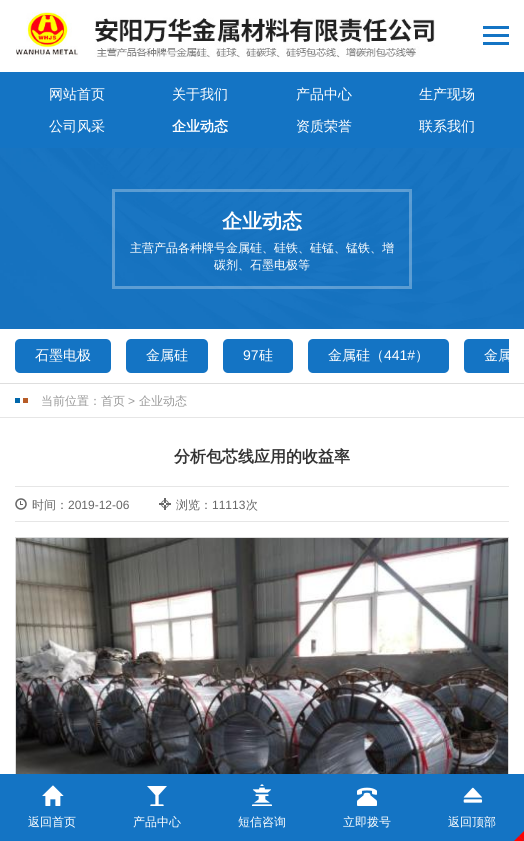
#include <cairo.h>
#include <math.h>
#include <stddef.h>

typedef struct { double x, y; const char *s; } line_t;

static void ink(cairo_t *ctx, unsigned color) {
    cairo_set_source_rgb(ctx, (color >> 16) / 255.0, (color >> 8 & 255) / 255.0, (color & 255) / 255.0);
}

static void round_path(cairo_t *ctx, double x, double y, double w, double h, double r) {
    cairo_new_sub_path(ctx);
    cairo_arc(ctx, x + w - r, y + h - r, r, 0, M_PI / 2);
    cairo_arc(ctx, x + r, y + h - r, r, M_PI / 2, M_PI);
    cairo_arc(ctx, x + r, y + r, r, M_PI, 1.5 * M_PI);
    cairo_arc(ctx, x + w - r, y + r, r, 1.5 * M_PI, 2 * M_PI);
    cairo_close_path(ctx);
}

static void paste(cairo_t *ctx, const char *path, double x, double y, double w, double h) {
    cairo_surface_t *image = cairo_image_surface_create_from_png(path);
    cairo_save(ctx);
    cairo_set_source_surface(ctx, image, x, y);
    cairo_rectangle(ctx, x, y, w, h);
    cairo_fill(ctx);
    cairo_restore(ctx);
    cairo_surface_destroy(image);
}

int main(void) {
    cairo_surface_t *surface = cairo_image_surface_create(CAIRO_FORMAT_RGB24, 524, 841);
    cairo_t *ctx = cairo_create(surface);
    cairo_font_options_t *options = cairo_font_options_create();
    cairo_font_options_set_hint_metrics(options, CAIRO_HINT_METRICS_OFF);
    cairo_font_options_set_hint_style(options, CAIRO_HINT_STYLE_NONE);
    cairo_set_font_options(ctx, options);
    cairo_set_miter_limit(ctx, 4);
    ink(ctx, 0xFFFFFF);
    cairo_paint(ctx);
    paste(ctx, "media/1.png", 16, 12, 419, 46);
    paste(ctx, "media/2.png", 483, 26, 26, 19);
    ink(ctx, 0x1474C4);
    cairo_rectangle(ctx, 0, 72, 524, 76);
    cairo_fill(ctx);
    cairo_select_font_face(ctx, "WenQuanYi Zen Hei Medium", CAIRO_FONT_SLANT_NORMAL, CAIRO_FONT_WEIGHT_NORMAL);
    cairo_set_font_size(ctx, 14);
    ink(ctx, 0xFFFFFF);
    {
        static const line_t items[] = {
            {49, 99, "网站首页"},
            {172, 99, "关于我们"},
            {296, 99, "产品中心"},
            {419, 99, "生产现场"},
            {49, 131, "公司风采"},
        };
        for (size_t i = 0; i < sizeof items / sizeof *items; i++) {
            cairo_move_to(ctx, items[i].x, items[i].y);
            cairo_show_text(ctx, items[i].s);
        }
    }
    cairo_select_font_face(ctx, "WenQuanYi Zen Hei", CAIRO_FONT_SLANT_NORMAL, CAIRO_FONT_WEIGHT_BOLD);
    cairo_move_to(ctx, 172, 131);
    cairo_show_text(ctx, "企业动态");
    cairo_select_font_face(ctx, "WenQuanYi Zen Hei Medium", CAIRO_FONT_SLANT_NORMAL, CAIRO_FONT_WEIGHT_NORMAL);
    cairo_move_to(ctx, 296, 131);
    cairo_show_text(ctx, "资质荣誉");
    cairo_move_to(ctx, 419, 131);
    cairo_show_text(ctx, "联系我们");
    paste(ctx, "media/3.png", 0, 148, 524, 181);
    cairo_rectangle(ctx, 113.5, 190.5, 297, 97);
    cairo_set_source_rgba(ctx, 1, 1, 1, 0.3);
    cairo_set_line_width(ctx, 3);
    cairo_stroke(ctx);
    cairo_select_font_face(ctx, "WenQuanYi Zen Hei", CAIRO_FONT_SLANT_NORMAL, CAIRO_FONT_WEIGHT_BOLD);
    cairo_set_font_size(ctx, 20);
    ink(ctx, 0xFFFFFF);
    cairo_move_to(ctx, 222, 228);
    cairo_show_text(ctx, "企业动态");
    cairo_select_font_face(ctx, "WenQuanYi Zen Hei Medium", CAIRO_FONT_SLANT_NORMAL, CAIRO_FONT_WEIGHT_NORMAL);
    cairo_set_font_size(ctx, 12);
    cairo_move_to(ctx, 130, 252);
    cairo_show_text(ctx, "主营产品各种牌号金属硅、硅铁、硅锰、锰铁、增");
    cairo_move_to(ctx, 214, 269);
    cairo_show_text(ctx, "碳剂、石墨电极等");
    ink(ctx, 0xDEDEDE);
    cairo_rectangle(ctx, 0, 383, 524, 1);
    cairo_fill(ctx);
    ink(ctx, 0x1474C4);
    round_path(ctx, 15, 339, 96, 34, 5);
    cairo_fill(ctx);
    cairo_set_font_size(ctx, 14);
    ink(ctx, 0xFFFFFF);
    cairo_move_to(ctx, 35, 360);
    cairo_show_text(ctx, "石墨电极");
    ink(ctx, 0x1474C4);
    round_path(ctx, 126, 339, 82, 34, 5);
    cairo_fill(ctx);
    ink(ctx, 0xFFFFFF);
    cairo_move_to(ctx, 146, 360);
    cairo_show_text(ctx, "金属硅");
    ink(ctx, 0x1474C4);
    round_path(ctx, 223, 339, 70, 34, 5);
    cairo_fill(ctx);
    cairo_select_font_face(ctx, "Liberation Sans", CAIRO_FONT_SLANT_NORMAL, CAIRO_FONT_WEIGHT_NORMAL);
    ink(ctx, 0xFFFFFF);
    cairo_move_to(ctx, 243, 360);
    cairo_show_text(ctx, "97");
    cairo_select_font_face(ctx, "WenQuanYi Zen Hei Medium", CAIRO_FONT_SLANT_NORMAL, CAIRO_FONT_WEIGHT_NORMAL);
    cairo_move_to(ctx, 259, 360);
    cairo_show_text(ctx, "硅");
    ink(ctx, 0x1474C4);
    round_path(ctx, 308, 339, 141, 34, 5);
    cairo_fill(ctx);
    ink(ctx, 0xFFFFFF);
    cairo_move_to(ctx, 328, 360);
    cairo_show_text(ctx, "金属硅（");
    cairo_select_font_face(ctx, "Liberation Sans", CAIRO_FONT_SLANT_NORMAL, CAIRO_FONT_WEIGHT_NORMAL);
    cairo_move_to(ctx, 384, 360);
    cairo_show_text(ctx, "441#");
    cairo_select_font_face(ctx, "WenQuanYi Zen Hei Medium", CAIRO_FONT_SLANT_NORMAL, CAIRO_FONT_WEIGHT_NORMAL);
    cairo_move_to(ctx, 415, 360);
    cairo_show_text(ctx, "）");
    ink(ctx, 0x1474C4);
    cairo_new_path(ctx);
    cairo_move_to(ctx, 469, 339);
    cairo_line_to(ctx, 509, 339);
    cairo_line_to(ctx, 509, 373);
    cairo_line_to(ctx, 469, 373);
    cairo_curve_to(ctx, 466, 373, 464, 371, 464, 368);
    cairo_line_to(ctx, 464, 344);
    cairo_curve_to(ctx, 464, 341, 466, 339, 469, 339);
    cairo_close_path(ctx);
    cairo_fill(ctx);
    cairo_save(ctx);
    cairo_rectangle(ctx, 15, 339, 494, 34);
    cairo_clip(ctx);
    ink(ctx, 0xFFFFFF);
    cairo_move_to(ctx, 484, 360);
    cairo_show_text(ctx, "金属");
    cairo_restore(ctx);
    ink(ctx, 0xE6E6E6);
    cairo_rectangle(ctx, 0, 417, 524, 1);
    cairo_fill(ctx);
    paste(ctx, "media/4.png", 15, 398, 13, 5);
    cairo_set_font_size(ctx, 12);
    ink(ctx, 0x999999);
    cairo_move_to(ctx, 41, 405);
    cairo_show_text(ctx, "当前位置：首页");
    cairo_select_font_face(ctx, "Liberation Sans", CAIRO_FONT_SLANT_NORMAL, CAIRO_FONT_WEIGHT_NORMAL);
    cairo_move_to(ctx, 128, 405);
    cairo_show_text(ctx, ">");
    cairo_select_font_face(ctx, "WenQuanYi Zen Hei Medium", CAIRO_FONT_SLANT_NORMAL, CAIRO_FONT_WEIGHT_NORMAL);
    cairo_move_to(ctx, 139, 405);
    cairo_show_text(ctx, "企业动态");
    cairo_select_font_face(ctx, "WenQuanYi Zen Hei", CAIRO_FONT_SLANT_NORMAL, CAIRO_FONT_WEIGHT_BOLD);
    cairo_set_font_size(ctx, 16);
    ink(ctx, 0x333333);
    cairo_move_to(ctx, 174, 462);
    cairo_show_text(ctx, "分析包芯线应用的收益率");
    ink(ctx, 0xE6E6E6);
    cairo_rectangle(ctx, 15, 486, 494, 1);
    cairo_fill(ctx);
    cairo_rectangle(ctx, 15, 521, 494, 1);
    cairo_fill(ctx);
    paste(ctx, "media/5.png", 15, 498, 12, 12);
    cairo_select_font_face(ctx, "WenQuanYi Zen Hei Medium", CAIRO_FONT_SLANT_NORMAL, CAIRO_FONT_WEIGHT_NORMAL);
    cairo_set_font_size(ctx, 12);
    ink(ctx, 0x666666);
    cairo_move_to(ctx, 32, 509);
    cairo_show_text(ctx, "时间：");
    cairo_select_font_face(ctx, "Liberation Sans", CAIRO_FONT_SLANT_NORMAL, CAIRO_FONT_WEIGHT_NORMAL);
    cairo_move_to(ctx, 68, 509);
    cairo_show_text(ctx, "2019-12-06");
    paste(ctx, "media/6.png", 159, 498, 12, 12);
    cairo_select_font_face(ctx, "WenQuanYi Zen Hei Medium", CAIRO_FONT_SLANT_NORMAL, CAIRO_FONT_WEIGHT_NORMAL);
    cairo_move_to(ctx, 176, 509);
    cairo_show_text(ctx, "浏览：");
    cairo_select_font_face(ctx, "Liberation Sans", CAIRO_FONT_SLANT_NORMAL, CAIRO_FONT_WEIGHT_NORMAL);
    cairo_move_to(ctx, 212, 509);
    cairo_show_text(ctx, "11113");
    cairo_select_font_face(ctx, "WenQuanYi Zen Hei Medium", CAIRO_FONT_SLANT_NORMAL, CAIRO_FONT_WEIGHT_NORMAL);
    cairo_move_to(ctx, 246, 509);
    cairo_show_text(ctx, "次");
    cairo_rectangle(ctx, 15.5, 537.5, 493, 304);
    ink(ctx, 0xDCDCDC);
    cairo_set_line_width(ctx, 1);
    cairo_stroke(ctx);
    paste(ctx, "media/7.png", 16, 538, 492, 236);
    ink(ctx, 0x1474C4);
    cairo_rectangle(ctx, 0, 774, 524, 67);
    cairo_fill(ctx);
    paste(ctx, "media/8.png", 42, 785, 22, 21);
    ink(ctx, 0xFFFFFF);
    cairo_move_to(ctx, 28, 826);
    cairo_show_text(ctx, "返回首页");
    paste(ctx, "media/9.png", 147, 786, 20, 20);
    cairo_move_to(ctx, 133, 826);
    cairo_show_text(ctx, "产品中心");
    paste(ctx, "media/10.png", 252, 784, 20, 22);
    cairo_move_to(ctx, 238, 826);
    cairo_show_text(ctx, "短信咨询");
    paste(ctx, "media/11.png", 357, 787, 20, 19);
    cairo_move_to(ctx, 343, 826);
    cairo_show_text(ctx, "立即拨号");
    paste(ctx, "media/12.png", 463, 787, 20, 16);
    cairo_move_to(ctx, 448, 826);
    cairo_show_text(ctx, "返回顶部");
    ink(ctx, 0xFF0000);
    cairo_new_path(ctx);
    cairo_move_to(ctx, 524, 831);
    cairo_line_to(ctx, 524, 841);
    cairo_line_to(ctx, 519, 836);
    cairo_close_path(ctx);
    cairo_fill(ctx);
    cairo_new_path(ctx);
    cairo_move_to(ctx, 524, 841);
    cairo_line_to(ctx, 514, 841);
    cairo_line_to(ctx, 519, 836);
    cairo_close_path(ctx);
    cairo_fill(ctx);
    cairo_surface_write_to_png(surface, "image.png");
    cairo_font_options_destroy(options);
    cairo_destroy(ctx);
    cairo_surface_destroy(surface);
    return 0;
}
